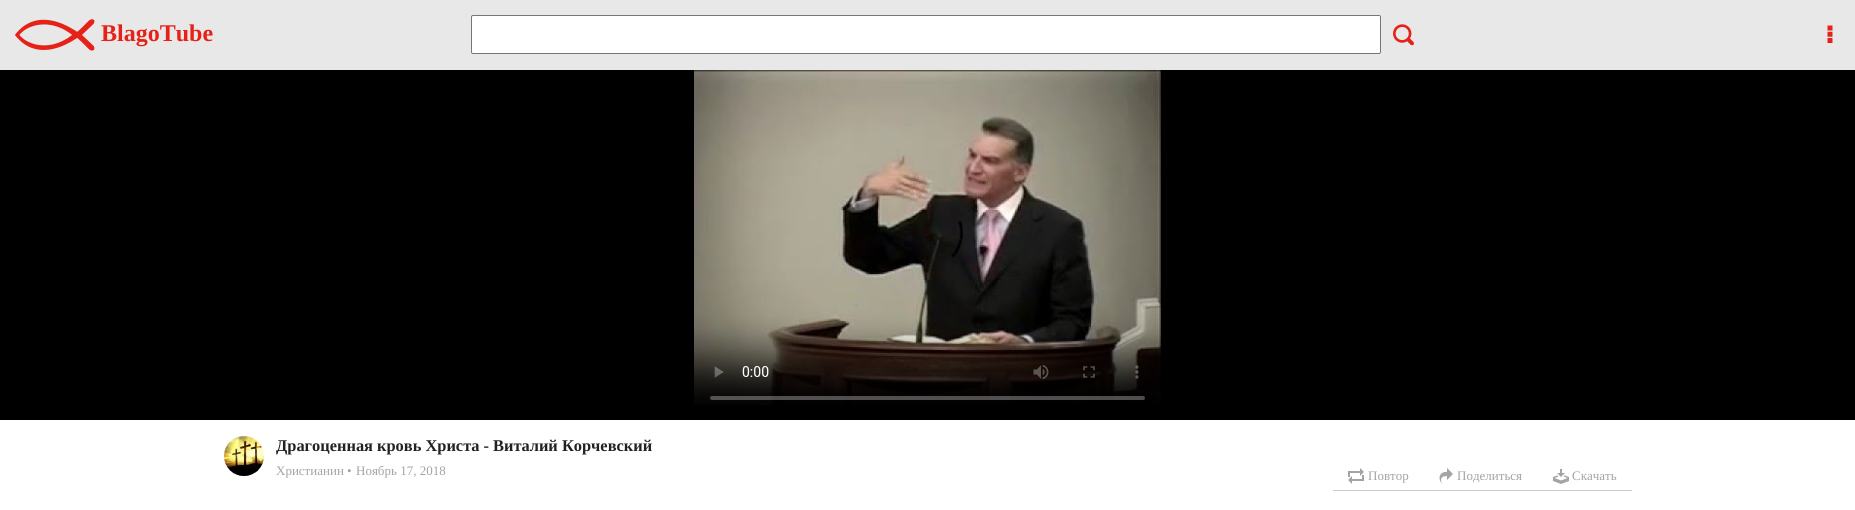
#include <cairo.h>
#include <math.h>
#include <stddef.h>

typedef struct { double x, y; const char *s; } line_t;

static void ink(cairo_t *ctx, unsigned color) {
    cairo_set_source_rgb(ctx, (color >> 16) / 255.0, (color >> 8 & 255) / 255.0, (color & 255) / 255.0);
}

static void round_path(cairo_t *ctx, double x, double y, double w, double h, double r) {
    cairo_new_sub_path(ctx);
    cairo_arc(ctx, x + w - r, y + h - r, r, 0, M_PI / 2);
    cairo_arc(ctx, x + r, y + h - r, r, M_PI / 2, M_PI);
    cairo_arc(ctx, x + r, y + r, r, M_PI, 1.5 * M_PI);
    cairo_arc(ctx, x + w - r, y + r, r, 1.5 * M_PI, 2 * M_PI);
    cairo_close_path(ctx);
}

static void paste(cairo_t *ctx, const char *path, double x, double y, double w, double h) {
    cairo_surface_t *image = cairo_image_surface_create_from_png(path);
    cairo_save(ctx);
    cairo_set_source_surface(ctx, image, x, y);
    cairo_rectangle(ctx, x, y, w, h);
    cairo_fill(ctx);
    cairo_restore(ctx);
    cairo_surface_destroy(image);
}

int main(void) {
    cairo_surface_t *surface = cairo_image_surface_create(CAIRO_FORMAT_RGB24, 1855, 510);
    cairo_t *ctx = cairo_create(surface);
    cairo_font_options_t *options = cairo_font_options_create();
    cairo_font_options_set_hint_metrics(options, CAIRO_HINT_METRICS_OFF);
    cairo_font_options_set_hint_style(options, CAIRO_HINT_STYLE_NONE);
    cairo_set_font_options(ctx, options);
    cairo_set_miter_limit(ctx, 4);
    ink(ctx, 0xFFFFFF);
    cairo_paint(ctx);
    ink(ctx, 0xE8E8E8);
    cairo_rectangle(ctx, 0, 0, 1855, 70);
    cairo_fill(ctx);
    paste(ctx, "media/1.png", 15, 19, 80, 32);
    cairo_select_font_face(ctx, "Liberation Serif", CAIRO_FONT_SLANT_NORMAL, CAIRO_FONT_WEIGHT_BOLD);
    cairo_set_font_size(ctx, 24);
    ink(ctx, 0xE62117);
    cairo_move_to(ctx, 101, 41);
    cairo_show_text(ctx, "BlagoTube");
    ink(ctx, 0xFFFFFF);
    round_path(ctx, 471.5, 15.5, 909, 38, 1.5);
    cairo_fill_preserve(ctx);
    ink(ctx, 0x767676);
    cairo_set_line_width(ctx, 1);
    cairo_stroke(ctx);
    paste(ctx, "media/2.png", 1393, 24, 21, 22);
    paste(ctx, "media/3.png", 1827, 25, 6, 18);
    ink(ctx, 0x000000);
    cairo_rectangle(ctx, 0, 70, 1855, 350);
    cairo_fill(ctx);
    paste(ctx, "media/4.png", 694, 70, 467, 335);
    paste(ctx, "media/5.png", 224, 436, 40, 40);
    cairo_set_font_size(ctx, 16.4);
    ink(ctx, 0x222222);
    cairo_move_to(ctx, 276, 451);
    cairo_show_text(ctx, "Драгоценная кровь Христа - Виталий Корчевский");
    cairo_select_font_face(ctx, "Liberation Serif", CAIRO_FONT_SLANT_NORMAL, CAIRO_FONT_WEIGHT_NORMAL);
    cairo_set_font_size(ctx, 13);
    ink(ctx, 0xA4A4A4);
    {
        static const line_t items[] = {
            {276, 475, "Христианин"},
            {347, 475, "•"},
            {356, 475, "Ноябрь 17, 2018"},
        };
        for (size_t i = 0; i < sizeof items / sizeof *items; i++) {
            cairo_move_to(ctx, items[i].x, items[i].y);
            cairo_show_text(ctx, items[i].s);
        }
    }
    ink(ctx, 0xCCCCCC);
    cairo_rectangle(ctx, 1333, 490, 299, 1);
    cairo_fill(ctx);
    paste(ctx, "media/6.png", 1348, 468, 16, 16);
    ink(ctx, 0xA4A4A4);
    cairo_move_to(ctx, 1368, 480);
    cairo_show_text(ctx, "Повтор");
    paste(ctx, "media/7.png", 1439, 468, 14, 16);
    cairo_move_to(ctx, 1457, 480);
    cairo_show_text(ctx, "Поделиться");
    paste(ctx, "media/8.png", 1553, 469, 16, 15);
    cairo_move_to(ctx, 1572, 480);
    cairo_show_text(ctx, "Скачать");
    cairo_surface_write_to_png(surface, "image.png");
    cairo_font_options_destroy(options);
    cairo_destroy(ctx);
    cairo_surface_destroy(surface);
    return 0;
}
